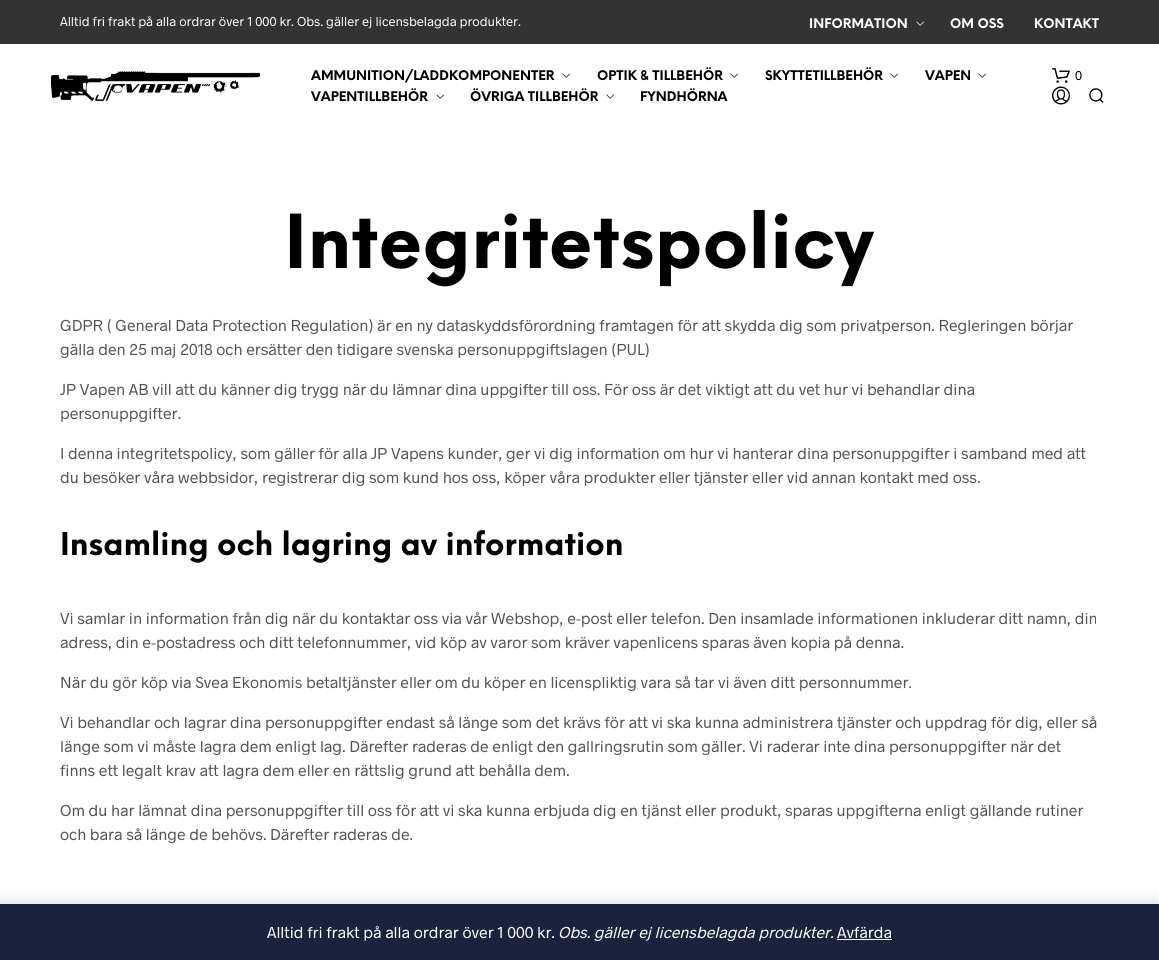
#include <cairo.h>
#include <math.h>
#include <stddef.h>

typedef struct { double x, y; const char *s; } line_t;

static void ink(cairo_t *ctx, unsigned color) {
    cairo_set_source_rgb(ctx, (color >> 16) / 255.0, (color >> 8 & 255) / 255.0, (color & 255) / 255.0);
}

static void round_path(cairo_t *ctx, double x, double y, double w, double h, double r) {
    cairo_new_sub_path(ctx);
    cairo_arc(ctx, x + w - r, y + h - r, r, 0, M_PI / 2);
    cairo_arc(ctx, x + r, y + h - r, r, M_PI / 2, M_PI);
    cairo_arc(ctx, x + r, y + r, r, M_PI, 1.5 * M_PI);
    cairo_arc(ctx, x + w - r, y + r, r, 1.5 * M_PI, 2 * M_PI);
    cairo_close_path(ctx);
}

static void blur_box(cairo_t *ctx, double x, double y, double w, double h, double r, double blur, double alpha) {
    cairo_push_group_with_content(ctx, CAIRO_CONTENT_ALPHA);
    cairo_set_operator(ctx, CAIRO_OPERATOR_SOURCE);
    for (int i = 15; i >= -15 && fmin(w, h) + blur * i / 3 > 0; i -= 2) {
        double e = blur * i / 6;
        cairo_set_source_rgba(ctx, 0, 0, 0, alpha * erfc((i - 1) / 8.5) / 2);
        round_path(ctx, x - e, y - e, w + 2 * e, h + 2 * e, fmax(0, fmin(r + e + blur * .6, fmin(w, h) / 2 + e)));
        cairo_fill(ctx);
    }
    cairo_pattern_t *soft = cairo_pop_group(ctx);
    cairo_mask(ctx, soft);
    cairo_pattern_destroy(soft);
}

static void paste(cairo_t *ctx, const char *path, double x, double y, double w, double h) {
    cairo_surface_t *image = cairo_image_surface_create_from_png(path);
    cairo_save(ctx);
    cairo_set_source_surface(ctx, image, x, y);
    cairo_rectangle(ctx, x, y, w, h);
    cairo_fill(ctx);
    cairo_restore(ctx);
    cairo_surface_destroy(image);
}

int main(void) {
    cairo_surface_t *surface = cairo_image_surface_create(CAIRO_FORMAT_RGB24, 1159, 960);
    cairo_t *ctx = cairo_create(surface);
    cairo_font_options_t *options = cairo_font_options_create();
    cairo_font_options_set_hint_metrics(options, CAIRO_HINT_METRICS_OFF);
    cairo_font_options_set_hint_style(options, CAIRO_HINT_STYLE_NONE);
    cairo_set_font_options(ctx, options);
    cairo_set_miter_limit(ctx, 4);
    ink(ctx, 0xFFFFFF);
    cairo_paint(ctx);
    ink(ctx, 0x333333);
    cairo_rectangle(ctx, 0, 0, 1159, 44);
    cairo_fill(ctx);
    cairo_select_font_face(ctx, "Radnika", CAIRO_FONT_SLANT_NORMAL, CAIRO_FONT_WEIGHT_NORMAL);
    cairo_set_font_size(ctx, 13);
    ink(ctx, 0xFFFFFF);
    cairo_move_to(ctx, 60, 26);
    cairo_show_text(ctx, "Alltid fri frakt på alla ordrar över 1 000 kr. Obs. gäller ej licensbelagda produkter.");
    cairo_select_font_face(ctx, "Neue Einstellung", CAIRO_FONT_SLANT_NORMAL, CAIRO_FONT_WEIGHT_BOLD);
    cairo_move_to(ctx, 809, 28);
    cairo_show_text(ctx, "INFORMATION");
    paste(ctx, "media/1.png", 916, 21, 8, 5);
    cairo_move_to(ctx, 950, 28);
    cairo_show_text(ctx, "OM OSS");
    cairo_move_to(ctx, 1034, 28);
    cairo_show_text(ctx, "KONTAKT");
    paste(ctx, "media/2.png", 50, 71, 211, 31);
    ink(ctx, 0x000000);
    cairo_move_to(ctx, 311, 80);
    cairo_show_text(ctx, "AMMUNITION/LADDKOMPONENTER");
    paste(ctx, "media/3.png", 562, 73, 8, 5);
    cairo_move_to(ctx, 597, 80);
    cairo_show_text(ctx, "OPTIK & TILLBEHÖR");
    paste(ctx, "media/3.png", 730, 73, 8, 5);
    cairo_move_to(ctx, 765, 80);
    cairo_show_text(ctx, "SKYTTETILLBEHÖR");
    paste(ctx, "media/3.png", 890, 73, 8, 5);
    cairo_move_to(ctx, 925, 80);
    cairo_show_text(ctx, "VAPEN");
    paste(ctx, "media/3.png", 978, 73, 8, 5);
    cairo_move_to(ctx, 311, 101);
    cairo_show_text(ctx, "VAPENTILLBEHÖR");
    paste(ctx, "media/3.png", 436, 94, 8, 5);
    cairo_move_to(ctx, 470, 101);
    cairo_show_text(ctx, "ÖVRIGA TILLBEHÖR");
    paste(ctx, "media/3.png", 606, 94, 8, 5);
    cairo_move_to(ctx, 640, 101);
    cairo_show_text(ctx, "FYNDHÖRNA");
    paste(ctx, "media/4.png", 1052, 68, 18, 15);
    cairo_select_font_face(ctx, "Radnika", CAIRO_FONT_SLANT_NORMAL, CAIRO_FONT_WEIGHT_NORMAL);
    cairo_move_to(ctx, 1075, 80);
    cairo_show_text(ctx, "0");
    paste(ctx, "media/5.png", 1052, 86, 18, 19);
    paste(ctx, "media/6.png", 1089, 88, 15, 15);
    cairo_select_font_face(ctx, "Neue Einstellung", CAIRO_FONT_SLANT_NORMAL, CAIRO_FONT_WEIGHT_BOLD);
    cairo_set_font_size(ctx, 72.5);
    cairo_move_to(ctx, 284, 268);
    cairo_show_text(ctx, "Integritetspolicy");
    cairo_select_font_face(ctx, "Radnika", CAIRO_FONT_SLANT_NORMAL, CAIRO_FONT_WEIGHT_NORMAL);
    cairo_set_font_size(ctx, 16);
    ink(ctx, 0x545454);
    {
        static const line_t items[] = {
            {60, 331, "GDPR ( General Data Protection Regulation) är en ny dataskyddsförordning framtagen för att skydda dig som privatperson. Regleringen börjar"},
            {60, 355, "gälla den 25 maj 2018 och ersätter den tidigare svenska personuppgiftslagen (PUL)"},
            {60, 395, "JP Vapen AB vill att du känner dig trygg när du lämnar dina uppgifter till oss. För oss är det viktigt att du vet hur vi behandlar dina"},
            {60, 419, "personuppgifter."},
            {60, 459, "I denna integritetspolicy, som gäller för alla JP Vapens kunder, ger vi dig information om hur vi hanterar dina personuppgifter i samband med att"},
            {60, 483, "du besöker våra webbsidor, registrerar dig som kund hos oss, köper våra produkter eller tjänster eller vid annan kontakt med oss."},
        };
        for (size_t i = 0; i < sizeof items / sizeof *items; i++) {
            cairo_move_to(ctx, items[i].x, items[i].y);
            cairo_show_text(ctx, items[i].s);
        }
    }
    cairo_select_font_face(ctx, "Neue Einstellung", CAIRO_FONT_SLANT_NORMAL, CAIRO_FONT_WEIGHT_BOLD);
    cairo_set_font_size(ctx, 30.7);
    ink(ctx, 0x000000);
    cairo_move_to(ctx, 60, 555);
    cairo_show_text(ctx, "Insamling och lagring av information");
    cairo_select_font_face(ctx, "Radnika", CAIRO_FONT_SLANT_NORMAL, CAIRO_FONT_WEIGHT_NORMAL);
    cairo_set_font_size(ctx, 16);
    ink(ctx, 0x545454);
    {
        static const line_t items[] = {
            {60, 624, "Vi samlar in information från dig när du kontaktar oss via vår Webshop, e-post eller telefon. Den insamlade informationen inkluderar ditt namn, din"},
            {60, 648, "adress, din e-postadress och ditt telefonnummer, vid köp av varor som kräver vapenlicens sparas även kopia på denna."},
            {60, 688, "När du gör köp via Svea Ekonomis betaltjänster eller om du köper en licenspliktig vara så tar vi även ditt personnummer."},
            {60, 728, "Vi behandlar och lagrar dina personuppgifter endast så länge som det krävs för att vi ska kunna administrera tjänster och uppdrag för dig, eller så"},
            {60, 752, "länge som vi måste lagra dem enligt lag. Därefter raderas de enligt den gallringsrutin som gäller. Vi raderar inte dina personuppgifter när det"},
            {60, 776, "finns ett legalt krav att lagra dem eller en rättslig grund att behålla dem."},
            {60, 816, "Om du har lämnat dina personuppgifter till oss för att vi ska kunna erbjuda dig en tjänst eller produkt, sparas uppgifterna enligt gällande rutiner"},
            {60, 840, "och bara så länge de behövs. Därefter raderas de."},
        };
        for (size_t i = 0; i < sizeof items / sizeof *items; i++) {
            cairo_move_to(ctx, items[i].x, items[i].y);
            cairo_show_text(ctx, items[i].s);
        }
    }
    ink(ctx, 0x000000);
    blur_box(ctx, 0, 905, 1159, 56, 0, 8, 0.2);
    ink(ctx, 0x19233E);
    cairo_rectangle(ctx, 0, 904, 1159, 56);
    cairo_fill(ctx);
    ink(ctx, 0xFFFFFF);
    cairo_move_to(ctx, 267, 938);
    cairo_show_text(ctx, "Alltid fri frakt på alla ordrar över 1 000 kr.");
    cairo_select_font_face(ctx, "Radnika", CAIRO_FONT_SLANT_ITALIC, CAIRO_FONT_WEIGHT_NORMAL);
    cairo_move_to(ctx, 558, 938);
    cairo_show_text(ctx, "Obs. gäller ej licensbelagda produkter.");
    cairo_select_font_face(ctx, "Radnika", CAIRO_FONT_SLANT_NORMAL, CAIRO_FONT_WEIGHT_NORMAL);
    cairo_move_to(ctx, 837, 938);
    cairo_show_text(ctx, "Avfärda");
    ink(ctx, 0xFCFBFE);
    cairo_rectangle(ctx, 837, 939, 55, 1);
    cairo_fill(ctx);
    cairo_surface_write_to_png(surface, "image.png");
    cairo_font_options_destroy(options);
    cairo_destroy(ctx);
    cairo_surface_destroy(surface);
    return 0;
}
